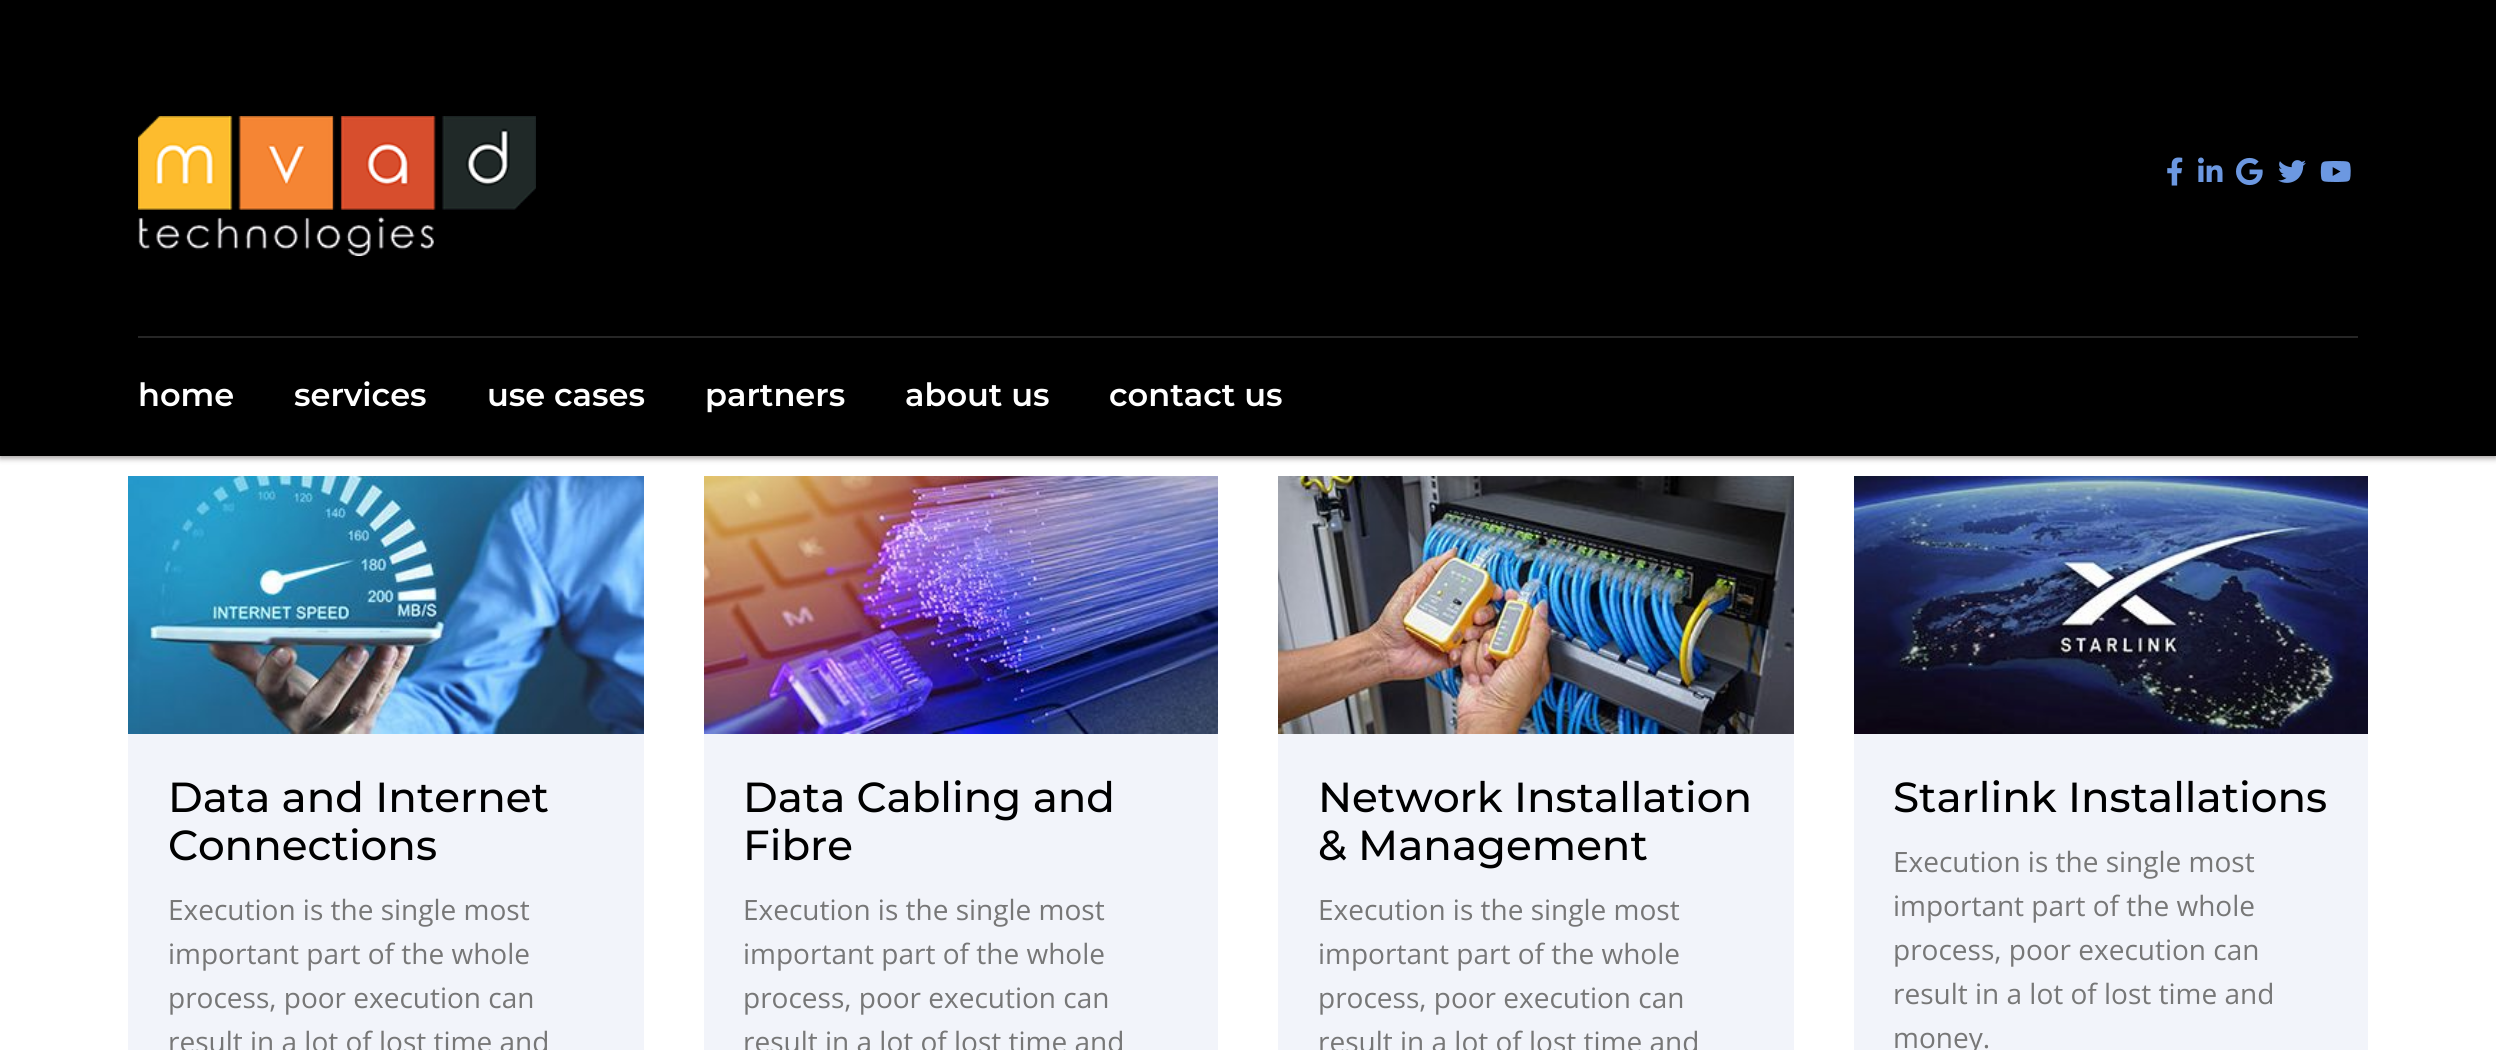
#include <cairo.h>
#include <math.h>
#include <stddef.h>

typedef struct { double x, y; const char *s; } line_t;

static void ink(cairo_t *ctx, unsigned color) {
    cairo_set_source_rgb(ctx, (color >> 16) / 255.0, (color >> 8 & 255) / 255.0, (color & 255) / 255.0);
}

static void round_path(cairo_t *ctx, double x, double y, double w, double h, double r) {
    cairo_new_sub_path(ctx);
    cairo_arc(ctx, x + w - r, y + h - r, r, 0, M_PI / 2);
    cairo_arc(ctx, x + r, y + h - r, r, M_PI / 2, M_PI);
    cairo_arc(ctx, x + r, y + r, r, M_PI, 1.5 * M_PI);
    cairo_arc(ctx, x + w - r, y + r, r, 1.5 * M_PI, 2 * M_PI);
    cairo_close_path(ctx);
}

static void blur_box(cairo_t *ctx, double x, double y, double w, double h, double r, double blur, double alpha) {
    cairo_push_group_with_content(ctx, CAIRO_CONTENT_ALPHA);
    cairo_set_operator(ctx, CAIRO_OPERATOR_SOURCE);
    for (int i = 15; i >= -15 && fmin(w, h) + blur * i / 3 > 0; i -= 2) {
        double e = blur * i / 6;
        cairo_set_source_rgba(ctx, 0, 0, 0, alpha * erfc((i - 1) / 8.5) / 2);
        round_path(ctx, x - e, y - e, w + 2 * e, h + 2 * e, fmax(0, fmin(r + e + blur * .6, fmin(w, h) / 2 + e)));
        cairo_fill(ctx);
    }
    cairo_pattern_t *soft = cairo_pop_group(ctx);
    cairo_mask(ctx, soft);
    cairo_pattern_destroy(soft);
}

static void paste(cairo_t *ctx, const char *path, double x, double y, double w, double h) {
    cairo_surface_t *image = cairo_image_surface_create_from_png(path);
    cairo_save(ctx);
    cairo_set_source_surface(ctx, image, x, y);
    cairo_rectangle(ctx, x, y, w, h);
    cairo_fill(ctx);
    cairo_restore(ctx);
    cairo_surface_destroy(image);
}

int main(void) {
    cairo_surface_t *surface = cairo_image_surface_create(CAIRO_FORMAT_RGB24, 2496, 1050);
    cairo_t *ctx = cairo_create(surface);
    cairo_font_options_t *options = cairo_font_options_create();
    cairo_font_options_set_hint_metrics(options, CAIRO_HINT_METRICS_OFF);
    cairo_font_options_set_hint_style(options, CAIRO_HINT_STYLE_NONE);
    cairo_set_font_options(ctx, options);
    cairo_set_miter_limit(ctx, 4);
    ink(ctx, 0xFFFFFF);
    cairo_paint(ctx);
    ink(ctx, 0x9D9999);
    blur_box(ctx, 0, 2, 2496, 456, 0, 3, 1);
    ink(ctx, 0x000000);
    cairo_rectangle(ctx, 0, 0, 2496, 456);
    cairo_fill(ctx);
    paste(ctx, "media/1.png", 138, 116, 398, 140);
    paste(ctx, "media/2.png", 2167, 157, 16, 29);
    paste(ctx, "media/3.png", 2198, 157, 25, 25);
    paste(ctx, "media/4.png", 2236, 157, 27, 29);
    paste(ctx, "media/5.png", 2278, 160, 28, 23);
    paste(ctx, "media/6.png", 2320, 161, 31, 21);
    ink(ctx, 0x262626);
    cairo_rectangle(ctx, 138, 336, 2220, 2);
    cairo_fill(ctx);
    cairo_select_font_face(ctx, "Montserrat SemiBold", CAIRO_FONT_SLANT_NORMAL, CAIRO_FONT_WEIGHT_NORMAL);
    cairo_set_font_size(ctx, 32);
    ink(ctx, 0xFFFFFF);
    {
        static const line_t items[] = {
            {138, 406, "home"},
            {294, 406, "services"},
            {487, 406, "use cases"},
            {705, 406, "partners"},
            {905, 406, "about us"},
            {1109, 406, "contact us"},
        };
        for (size_t i = 0; i < sizeof items / sizeof *items; i++) {
            cairo_move_to(ctx, items[i].x, items[i].y);
            cairo_show_text(ctx, items[i].s);
        }
    }
    ink(ctx, 0xF2F4FA);
    cairo_rectangle(ctx, 128, 734, 516, 316);
    cairo_fill(ctx);
    paste(ctx, "media/7.png", 128, 476, 516, 258);
    cairo_select_font_face(ctx, "Montserrat Medium", CAIRO_FONT_SLANT_NORMAL, CAIRO_FONT_WEIGHT_NORMAL);
    cairo_set_font_size(ctx, 42);
    ink(ctx, 0x000000);
    cairo_move_to(ctx, 168, 812);
    cairo_show_text(ctx, "Data and Internet");
    cairo_move_to(ctx, 168, 860);
    cairo_show_text(ctx, "Connections");
    cairo_select_font_face(ctx, "Open Sans", CAIRO_FONT_SLANT_NORMAL, CAIRO_FONT_WEIGHT_NORMAL);
    cairo_set_font_size(ctx, 28);
    ink(ctx, 0x777777);
    {
        static const line_t items[] = {
            {168, 920, "Execution is the single most"},
            {168, 964, "important part of the whole"},
            {168, 1008, "process, poor execution can"},
            {168, 1052, "result in a lot of lost time and"},
        };
        for (size_t i = 0; i < sizeof items / sizeof *items; i++) {
            cairo_move_to(ctx, items[i].x, items[i].y);
            cairo_show_text(ctx, items[i].s);
        }
    }
    ink(ctx, 0xF2F4FA);
    cairo_rectangle(ctx, 704, 734, 514, 316);
    cairo_fill(ctx);
    paste(ctx, "media/8.png", 704, 476, 514, 258);
    cairo_select_font_face(ctx, "Montserrat Medium", CAIRO_FONT_SLANT_NORMAL, CAIRO_FONT_WEIGHT_NORMAL);
    cairo_set_font_size(ctx, 42);
    ink(ctx, 0x000000);
    cairo_move_to(ctx, 743, 812);
    cairo_show_text(ctx, "Data Cabling and");
    cairo_move_to(ctx, 743, 860);
    cairo_show_text(ctx, "Fibre");
    cairo_select_font_face(ctx, "Open Sans", CAIRO_FONT_SLANT_NORMAL, CAIRO_FONT_WEIGHT_NORMAL);
    cairo_set_font_size(ctx, 28);
    ink(ctx, 0x777777);
    {
        static const line_t items[] = {
            {743, 920, "Execution is the single most"},
            {743, 964, "important part of the whole"},
            {743, 1008, "process, poor execution can"},
            {743, 1052, "result in a lot of lost time and"},
        };
        for (size_t i = 0; i < sizeof items / sizeof *items; i++) {
            cairo_move_to(ctx, items[i].x, items[i].y);
            cairo_show_text(ctx, items[i].s);
        }
    }
    ink(ctx, 0xF2F4FA);
    cairo_rectangle(ctx, 1278, 734, 516, 316);
    cairo_fill(ctx);
    paste(ctx, "media/9.png", 1278, 476, 516, 258);
    cairo_select_font_face(ctx, "Montserrat Medium", CAIRO_FONT_SLANT_NORMAL, CAIRO_FONT_WEIGHT_NORMAL);
    cairo_set_font_size(ctx, 42);
    ink(ctx, 0x000000);
    cairo_move_to(ctx, 1318, 812);
    cairo_show_text(ctx, "Network Installation");
    cairo_move_to(ctx, 1318, 860);
    cairo_show_text(ctx, "& Management");
    cairo_select_font_face(ctx, "Open Sans", CAIRO_FONT_SLANT_NORMAL, CAIRO_FONT_WEIGHT_NORMAL);
    cairo_set_font_size(ctx, 28);
    ink(ctx, 0x777777);
    {
        static const line_t items[] = {
            {1318, 920, "Execution is the single most"},
            {1318, 964, "important part of the whole"},
            {1318, 1008, "process, poor execution can"},
            {1318, 1052, "result in a lot of lost time and"},
        };
        for (size_t i = 0; i < sizeof items / sizeof *items; i++) {
            cairo_move_to(ctx, items[i].x, items[i].y);
            cairo_show_text(ctx, items[i].s);
        }
    }
    ink(ctx, 0xF2F4FA);
    cairo_rectangle(ctx, 1854, 734, 514, 316);
    cairo_fill(ctx);
    paste(ctx, "media/10.png", 1854, 476, 514, 258);
    cairo_select_font_face(ctx, "Montserrat Medium", CAIRO_FONT_SLANT_NORMAL, CAIRO_FONT_WEIGHT_NORMAL);
    cairo_set_font_size(ctx, 42);
    ink(ctx, 0x000000);
    cairo_move_to(ctx, 1893, 812);
    cairo_show_text(ctx, "Starlink Installations");
    cairo_select_font_face(ctx, "Open Sans", CAIRO_FONT_SLANT_NORMAL, CAIRO_FONT_WEIGHT_NORMAL);
    cairo_set_font_size(ctx, 28);
    ink(ctx, 0x777777);
    {
        static const line_t items[] = {
            {1893, 872, "Execution is the single most"},
            {1893, 916, "important part of the whole"},
            {1893, 960, "process, poor execution can"},
            {1893, 1004, "result in a lot of lost time and"},
            {1893, 1048, "money."},
        };
        for (size_t i = 0; i < sizeof items / sizeof *items; i++) {
            cairo_move_to(ctx, items[i].x, items[i].y);
            cairo_show_text(ctx, items[i].s);
        }
    }
    cairo_surface_write_to_png(surface, "image.png");
    cairo_font_options_destroy(options);
    cairo_destroy(ctx);
    cairo_surface_destroy(surface);
    return 0;
}
